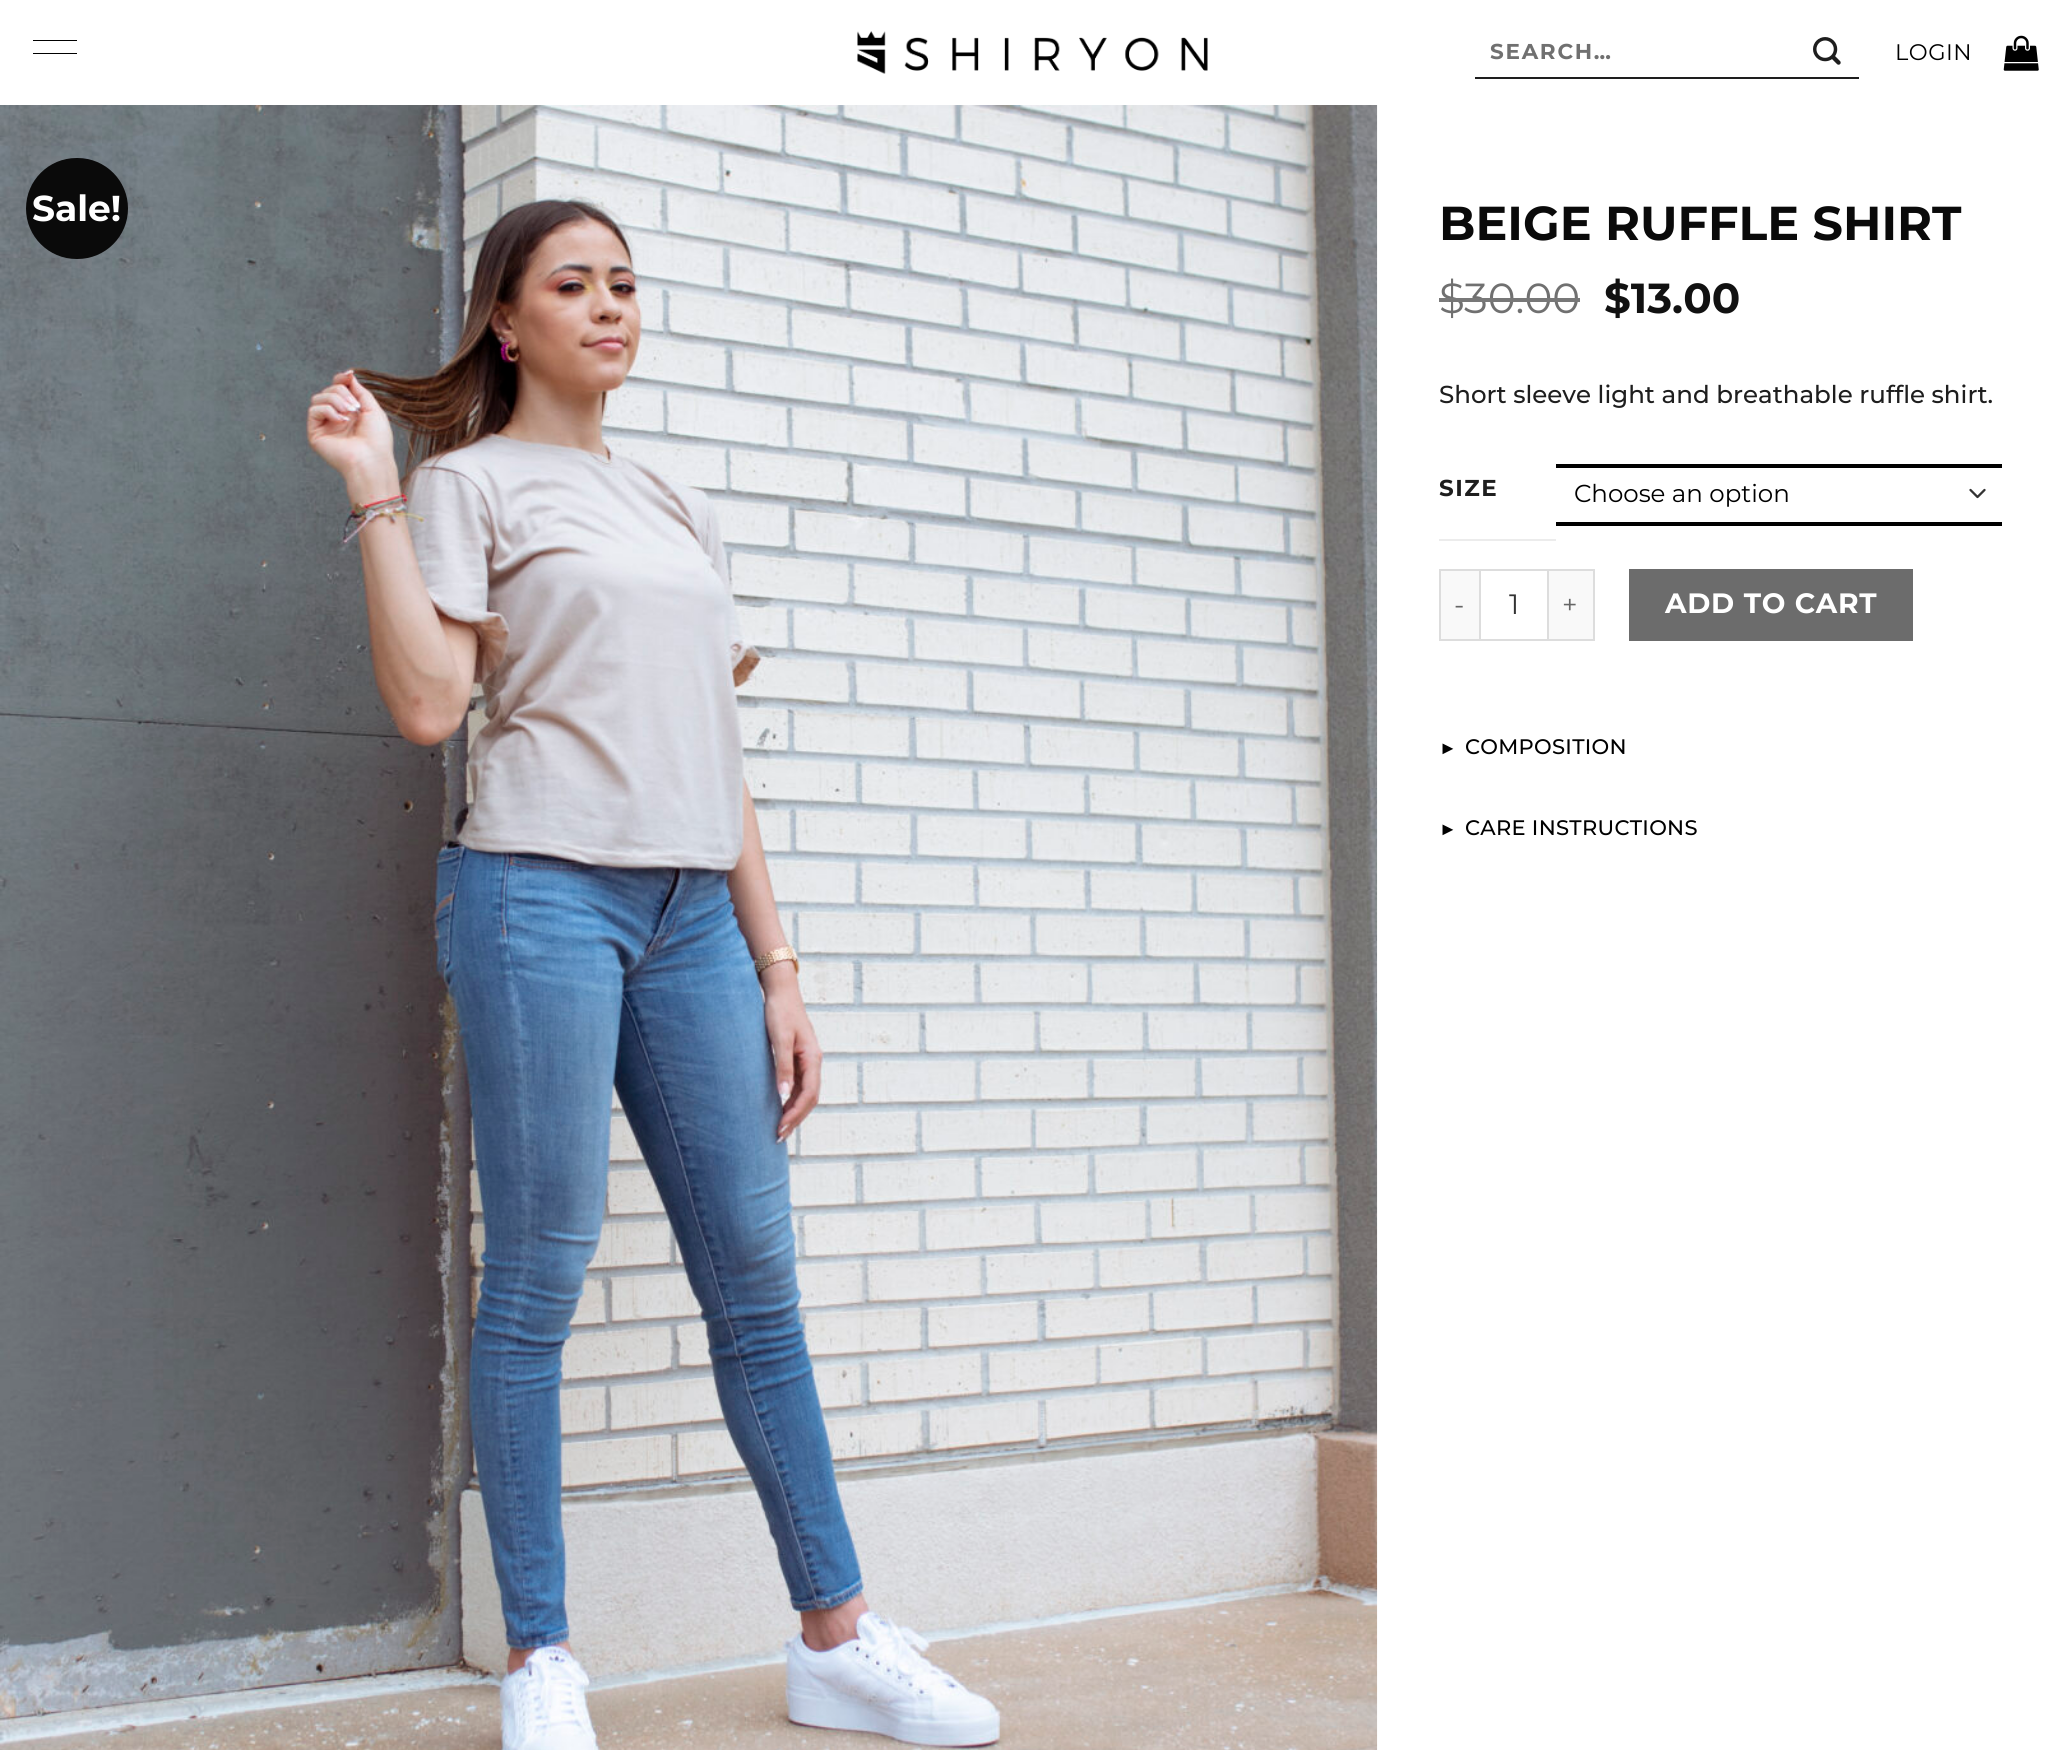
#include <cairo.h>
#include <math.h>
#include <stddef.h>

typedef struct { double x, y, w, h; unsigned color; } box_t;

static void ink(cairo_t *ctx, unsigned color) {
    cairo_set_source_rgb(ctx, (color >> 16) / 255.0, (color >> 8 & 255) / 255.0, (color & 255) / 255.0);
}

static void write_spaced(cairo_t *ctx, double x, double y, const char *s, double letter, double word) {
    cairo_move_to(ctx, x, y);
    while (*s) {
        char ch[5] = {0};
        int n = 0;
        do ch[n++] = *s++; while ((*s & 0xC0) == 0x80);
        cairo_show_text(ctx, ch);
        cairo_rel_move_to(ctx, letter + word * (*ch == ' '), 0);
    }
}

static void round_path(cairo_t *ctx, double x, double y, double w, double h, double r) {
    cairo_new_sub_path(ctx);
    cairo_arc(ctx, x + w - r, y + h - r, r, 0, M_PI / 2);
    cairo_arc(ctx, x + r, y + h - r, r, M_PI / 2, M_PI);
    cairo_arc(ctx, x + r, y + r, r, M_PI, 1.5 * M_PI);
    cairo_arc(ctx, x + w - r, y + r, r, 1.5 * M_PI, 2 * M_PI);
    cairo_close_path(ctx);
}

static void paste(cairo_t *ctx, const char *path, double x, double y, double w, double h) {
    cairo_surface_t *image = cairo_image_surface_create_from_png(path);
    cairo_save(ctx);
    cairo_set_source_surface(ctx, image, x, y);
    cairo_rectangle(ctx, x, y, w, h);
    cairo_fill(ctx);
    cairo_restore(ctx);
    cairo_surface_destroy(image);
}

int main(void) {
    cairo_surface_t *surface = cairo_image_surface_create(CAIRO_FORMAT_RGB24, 2064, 1750);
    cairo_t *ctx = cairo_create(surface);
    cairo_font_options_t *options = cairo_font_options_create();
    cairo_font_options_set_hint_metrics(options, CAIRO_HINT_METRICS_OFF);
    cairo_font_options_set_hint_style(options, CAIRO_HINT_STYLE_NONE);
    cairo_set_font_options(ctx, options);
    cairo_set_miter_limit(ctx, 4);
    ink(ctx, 0xFFFFFF);
    cairo_paint(ctx);
    ink(ctx, 0x000000);
    cairo_new_path(ctx);
    cairo_move_to(ctx, 33, 40);
    cairo_line_to(ctx, 77, 40);
    cairo_line_to(ctx, 77, 41);
    cairo_line_to(ctx, 33, 41);
    cairo_close_path(ctx);
    cairo_move_to(ctx, 33, 53);
    cairo_line_to(ctx, 77, 53);
    cairo_line_to(ctx, 77, 54);
    cairo_line_to(ctx, 33, 54);
    cairo_close_path(ctx);
    cairo_move_to(ctx, 34, 66);
    cairo_line_to(ctx, 33, 66);
    cairo_line_to(ctx, 77, 66);
    cairo_close_path(ctx);
    cairo_fill(ctx);
    paste(ctx, "media/1.png", 857, 31, 351, 43);
    ink(ctx, 0x1E1E1E);
    cairo_rectangle(ctx, 1475, 77, 384, 2);
    cairo_fill(ctx);
    cairo_select_font_face(ctx, "Montserrat", CAIRO_FONT_SLANT_NORMAL, CAIRO_FONT_WEIGHT_BOLD);
    cairo_set_font_size(ctx, 21.5);
    ink(ctx, 0x707070);
    write_spaced(ctx, 1490, 59, "SEARCH…", 1.75, 0);
    paste(ctx, "media/2.png", 1813, 37, 28, 28);
    cairo_select_font_face(ctx, "Montserrat Thin", CAIRO_FONT_SLANT_NORMAL, CAIRO_FONT_WEIGHT_NORMAL);
    cairo_set_font_size(ctx, 22.5);
    ink(ctx, 0x000000);
    write_spaced(ctx, 1895, 60, "LOGIN", 0.5, 0);
    paste(ctx, "media/3.png", 2003, 35, 36, 36);
    paste(ctx, "media/4.png", 0, 105, 1378, 1645);
    ink(ctx, 0x0A0A0A);
    round_path(ctx, 26, 158, 102, 101, 50.5);
    cairo_fill(ctx);
    cairo_select_font_face(ctx, "Montserrat", CAIRO_FONT_SLANT_NORMAL, CAIRO_FONT_WEIGHT_BOLD);
    cairo_set_font_size(ctx, 36);
    ink(ctx, 0xFFFFFF);
    cairo_move_to(ctx, 32, 221);
    cairo_show_text(ctx, "Sale!");
    cairo_set_font_size(ctx, 47.6);
    ink(ctx, 0x0A0A0A);
    cairo_move_to(ctx, 1439, 240);
    cairo_show_text(ctx, "BEIGE RUFFLE SHIRT");
    cairo_select_font_face(ctx, "Montserrat Thin", CAIRO_FONT_SLANT_NORMAL, CAIRO_FONT_WEIGHT_NORMAL);
    cairo_set_font_size(ctx, 42);
    ink(ctx, 0x707070);
    cairo_move_to(ctx, 1439, 313);
    cairo_show_text(ctx, "$");
    ink(ctx, 0x787878);
    cairo_rectangle(ctx, 1439, 298, 26, 4);
    cairo_fill(ctx);
    ink(ctx, 0x707070);
    cairo_move_to(ctx, 1464, 313);
    cairo_show_text(ctx, "30.00");
    ink(ctx, 0x787878);
    cairo_rectangle(ctx, 1465, 298, 115, 4);
    cairo_fill(ctx);
    cairo_select_font_face(ctx, "Montserrat", CAIRO_FONT_SLANT_NORMAL, CAIRO_FONT_WEIGHT_BOLD);
    ink(ctx, 0x111111);
    cairo_move_to(ctx, 1604, 313);
    cairo_show_text(ctx, "$13.00");
    cairo_select_font_face(ctx, "Montserrat Medium", CAIRO_FONT_SLANT_NORMAL, CAIRO_FONT_WEIGHT_NORMAL);
    cairo_set_font_size(ctx, 24.5);
    ink(ctx, 0x1E1E1E);
    cairo_move_to(ctx, 1439, 403);
    cairo_show_text(ctx, "Short sleeve light and breathable ruffle shirt.");
    ink(ctx, 0xECECEC);
    cairo_rectangle(ctx, 1439, 539, 117, 2);
    cairo_fill(ctx);
    cairo_select_font_face(ctx, "Montserrat", CAIRO_FONT_SLANT_NORMAL, CAIRO_FONT_WEIGHT_BOLD);
    cairo_set_font_size(ctx, 23);
    ink(ctx, 0x1E1E1E);
    write_spaced(ctx, 1439, 496, "SIZE", 1.5, 0);
    cairo_new_path(ctx);
    cairo_move_to(ctx, 1970.5, 490);
    cairo_line_to(ctx, 1977.5, 497);
    cairo_line_to(ctx, 1984.5, 490);
    ink(ctx, 0x333333);
    cairo_set_line_width(ctx, 2.3);
    cairo_set_line_cap(ctx, CAIRO_LINE_CAP_ROUND);
    cairo_set_line_join(ctx, CAIRO_LINE_JOIN_ROUND);
    cairo_stroke(ctx);
    ink(ctx, 0x000000);
    cairo_rectangle(ctx, 1556, 464, 446, 4);
    cairo_fill(ctx);
    cairo_rectangle(ctx, 1556, 522, 446, 4);
    cairo_fill(ctx);
    cairo_select_font_face(ctx, "Montserrat Thin", CAIRO_FONT_SLANT_NORMAL, CAIRO_FONT_WEIGHT_NORMAL);
    cairo_set_font_size(ctx, 24.5);
    cairo_move_to(ctx, 1574, 502);
    cairo_show_text(ctx, "Choose an option");
    {
        static const box_t items[] = {
            {1441, 571, 38, 68, 0xF9F9F9},
            {1439, 569, 40, 2, 0xDDDDDD},
            {1439, 639, 40, 2, 0xDDDDDD},
            {1439, 569, 2, 72, 0xDDDDDD},
        };
        for (size_t i = 0; i < sizeof items / sizeof *items; i++) {
            ink(ctx, items[i].color);
            cairo_rectangle(ctx, items[i].x, items[i].y, items[i].w, items[i].h);
            cairo_fill(ctx);
        }
    }
    cairo_set_font_size(ctx, 27);
    ink(ctx, 0x666666);
    write_spaced(ctx, 1454, 614, "-", 1, 0);
    cairo_rectangle(ctx, 1480, 570, 68, 70);
    ink(ctx, 0xDDDDDD);
    cairo_set_line_width(ctx, 2);
    cairo_set_line_cap(ctx, CAIRO_LINE_CAP_BUTT);
    cairo_set_line_join(ctx, CAIRO_LINE_JOIN_MITER);
    cairo_stroke(ctx);
    cairo_set_font_size(ctx, 28);
    ink(ctx, 0x333333);
    cairo_move_to(ctx, 1509, 614);
    cairo_show_text(ctx, "1");
    {
        static const box_t items[] = {
            {1549, 571, 44, 68, 0xF9F9F9},
            {1549, 569, 45, 2, 0xDDDDDD},
            {1593, 569, 2, 72, 0xDDDDDD},
            {1549, 639, 45, 2, 0xDDDDDD},
        };
        for (size_t i = 0; i < sizeof items / sizeof *items; i++) {
            ink(ctx, items[i].color);
            cairo_rectangle(ctx, items[i].x, items[i].y, items[i].w, items[i].h);
            cairo_fill(ctx);
        }
    }
    cairo_set_font_size(ctx, 27);
    ink(ctx, 0x666666);
    write_spaced(ctx, 1562, 614, "+", 1, 0);
    ink(ctx, 0x6C6C6C);
    cairo_rectangle(ctx, 1629, 569, 284, 72);
    cairo_fill(ctx);
    cairo_select_font_face(ctx, "Montserrat", CAIRO_FONT_SLANT_NORMAL, CAIRO_FONT_WEIGHT_BOLD);
    cairo_set_font_size(ctx, 28);
    ink(ctx, 0xFFFFFF);
    write_spaced(ctx, 1665, 613, "ADD TO CART", 0.75, 0);
    cairo_select_font_face(ctx, "Liberation Sans", CAIRO_FONT_SLANT_NORMAL, CAIRO_FONT_WEIGHT_NORMAL);
    cairo_set_font_size(ctx, 18);
    ink(ctx, 0x000000);
    cairo_move_to(ctx, 1439, 754);
    cairo_show_text(ctx, "►");
    cairo_select_font_face(ctx, "Montserrat Medium", CAIRO_FONT_SLANT_NORMAL, CAIRO_FONT_WEIGHT_NORMAL);
    cairo_set_font_size(ctx, 21);
    write_spaced(ctx, 1465, 754, "COMPOSITION", 0.3, 0);
    cairo_select_font_face(ctx, "Liberation Sans", CAIRO_FONT_SLANT_NORMAL, CAIRO_FONT_WEIGHT_NORMAL);
    cairo_set_font_size(ctx, 18);
    cairo_move_to(ctx, 1439, 835);
    cairo_show_text(ctx, "►");
    cairo_select_font_face(ctx, "Montserrat Medium", CAIRO_FONT_SLANT_NORMAL, CAIRO_FONT_WEIGHT_NORMAL);
    cairo_set_font_size(ctx, 21);
    write_spaced(ctx, 1465, 835, "CARE INSTRUCTIONS", 0.3, 0);
    cairo_surface_write_to_png(surface, "image.png");
    cairo_font_options_destroy(options);
    cairo_destroy(ctx);
    cairo_surface_destroy(surface);
    return 0;
}
